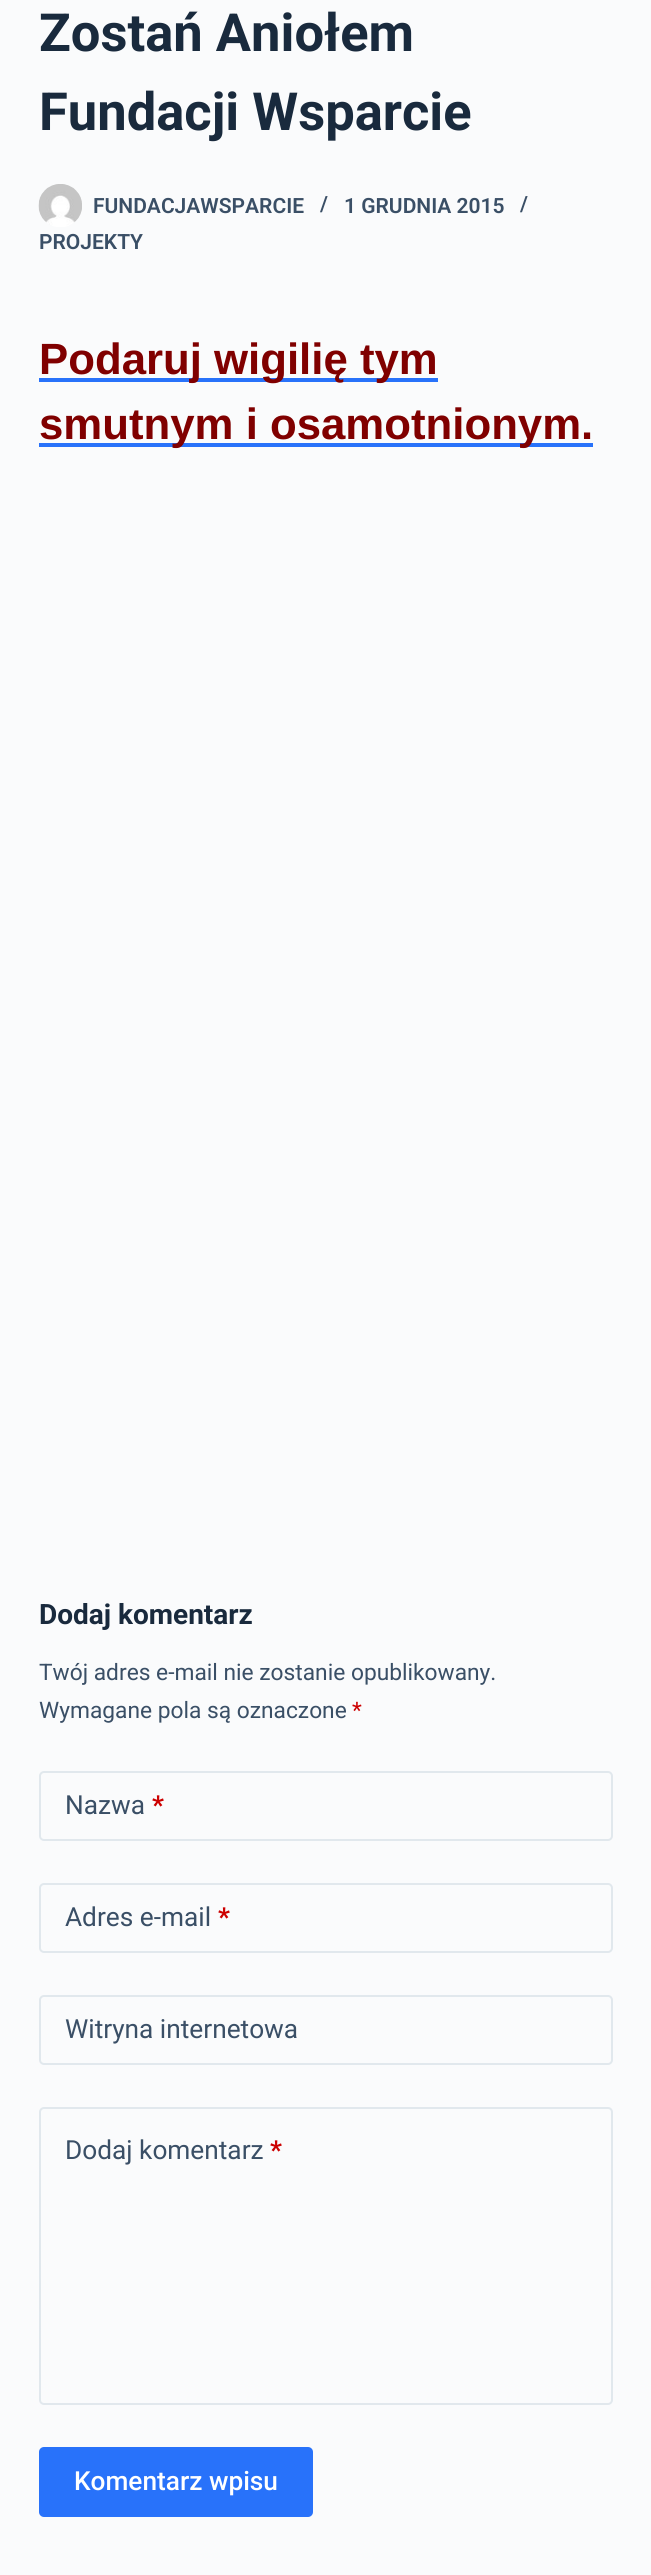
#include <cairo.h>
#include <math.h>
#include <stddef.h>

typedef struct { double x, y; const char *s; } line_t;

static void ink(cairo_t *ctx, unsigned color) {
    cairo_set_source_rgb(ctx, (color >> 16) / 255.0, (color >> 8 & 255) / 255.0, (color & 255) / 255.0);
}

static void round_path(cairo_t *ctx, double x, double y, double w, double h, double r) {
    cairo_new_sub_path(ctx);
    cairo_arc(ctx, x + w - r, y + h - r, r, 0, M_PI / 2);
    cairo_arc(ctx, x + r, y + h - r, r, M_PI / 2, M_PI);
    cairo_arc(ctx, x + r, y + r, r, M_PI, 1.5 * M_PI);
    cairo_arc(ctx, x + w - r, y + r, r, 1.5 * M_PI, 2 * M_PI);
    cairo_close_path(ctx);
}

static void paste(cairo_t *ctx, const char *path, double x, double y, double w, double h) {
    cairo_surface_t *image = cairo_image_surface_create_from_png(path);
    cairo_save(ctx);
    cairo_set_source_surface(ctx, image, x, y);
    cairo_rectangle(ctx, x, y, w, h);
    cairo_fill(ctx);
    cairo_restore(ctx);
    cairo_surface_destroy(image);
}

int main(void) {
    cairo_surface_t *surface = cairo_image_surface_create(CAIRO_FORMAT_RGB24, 651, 2575);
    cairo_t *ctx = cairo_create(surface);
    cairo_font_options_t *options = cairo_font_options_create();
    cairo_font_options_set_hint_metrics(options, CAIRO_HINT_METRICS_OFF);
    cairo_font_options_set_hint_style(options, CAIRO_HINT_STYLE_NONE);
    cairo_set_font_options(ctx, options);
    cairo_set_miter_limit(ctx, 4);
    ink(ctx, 0xFAFBFC);
    cairo_paint(ctx);
    cairo_select_font_face(ctx, "Roboto", CAIRO_FONT_SLANT_NORMAL, CAIRO_FONT_WEIGHT_BOLD);
    cairo_set_font_size(ctx, 52.5);
    ink(ctx, 0x192A3D);
    cairo_move_to(ctx, 39, 51);
    cairo_show_text(ctx, "Zostań Aniołem");
    cairo_move_to(ctx, 39, 130);
    cairo_show_text(ctx, "Fundacji Wsparcie");
    paste(ctx, "media/1.png", 38, 184, 44, 43);
    cairo_select_font_face(ctx, "Roboto SemiBold", CAIRO_FONT_SLANT_NORMAL, CAIRO_FONT_WEIGHT_NORMAL);
    cairo_set_font_size(ctx, 21);
    ink(ctx, 0x3A4F66);
    {
        static const line_t items[] = {
            {93, 213, "FUNDACJAWSPARCIE"},
            {320, 211, "/"},
            {344, 213, "1 GRUDNIA 2015"},
            {520, 211, "/"},
            {39, 249, "PROJEKTY"},
        };
        for (size_t i = 0; i < sizeof items / sizeof *items; i++) {
            cairo_move_to(ctx, items[i].x, items[i].y);
            cairo_show_text(ctx, items[i].s);
        }
    }
    ink(ctx, 0x2872FA);
    cairo_rectangle(ctx, 39, 378, 399, 4);
    cairo_fill(ctx);
    cairo_select_font_face(ctx, "Liberation Sans", CAIRO_FONT_SLANT_NORMAL, CAIRO_FONT_WEIGHT_BOLD);
    cairo_set_font_size(ctx, 43.75);
    ink(ctx, 0x800000);
    cairo_move_to(ctx, 39, 374);
    cairo_show_text(ctx, "Podaruj wigilię tym");
    ink(ctx, 0x2872FA);
    cairo_rectangle(ctx, 39, 443, 554, 4);
    cairo_fill(ctx);
    ink(ctx, 0x800000);
    cairo_move_to(ctx, 39, 439);
    cairo_show_text(ctx, "smutnym i osamotnionym.");
    cairo_select_font_face(ctx, "Roboto", CAIRO_FONT_SLANT_NORMAL, CAIRO_FONT_WEIGHT_BOLD);
    cairo_set_font_size(ctx, 28);
    ink(ctx, 0x192A3D);
    cairo_move_to(ctx, 39, 1624);
    cairo_show_text(ctx, "Dodaj komentarz");
    cairo_select_font_face(ctx, "Roboto", CAIRO_FONT_SLANT_NORMAL, CAIRO_FONT_WEIGHT_NORMAL);
    cairo_set_font_size(ctx, 22.75);
    ink(ctx, 0x3A4F66);
    cairo_move_to(ctx, 39, 1680);
    cairo_show_text(ctx, "Twój adres e-mail nie zostanie opublikowany.");
    cairo_move_to(ctx, 39, 1718);
    cairo_show_text(ctx, "Wymagane pola są oznaczone");
    ink(ctx, 0xCC0000);
    cairo_move_to(ctx, 352, 1718);
    cairo_show_text(ctx, "*");
    round_path(ctx, 40, 1772, 572, 68, 4);
    ink(ctx, 0xE1E8ED);
    cairo_stroke(ctx);
    cairo_set_font_size(ctx, 26.25);
    ink(ctx, 0x3A4F66);
    cairo_move_to(ctx, 65, 1814);
    cairo_show_text(ctx, "Nazwa");
    cairo_select_font_face(ctx, "Roboto", CAIRO_FONT_SLANT_NORMAL, CAIRO_FONT_WEIGHT_BOLD);
    ink(ctx, 0xCC0000);
    cairo_move_to(ctx, 152, 1814);
    cairo_show_text(ctx, "*");
    round_path(ctx, 40, 1884, 572, 68, 4);
    ink(ctx, 0xE1E8ED);
    cairo_stroke(ctx);
    cairo_select_font_face(ctx, "Roboto", CAIRO_FONT_SLANT_NORMAL, CAIRO_FONT_WEIGHT_NORMAL);
    ink(ctx, 0x3A4F66);
    cairo_move_to(ctx, 65, 1926);
    cairo_show_text(ctx, "Adres e-mail");
    cairo_select_font_face(ctx, "Roboto", CAIRO_FONT_SLANT_NORMAL, CAIRO_FONT_WEIGHT_BOLD);
    ink(ctx, 0xCC0000);
    cairo_move_to(ctx, 218, 1926);
    cairo_show_text(ctx, "*");
    round_path(ctx, 40, 1996, 572, 68, 4);
    ink(ctx, 0xE1E8ED);
    cairo_stroke(ctx);
    cairo_select_font_face(ctx, "Roboto", CAIRO_FONT_SLANT_NORMAL, CAIRO_FONT_WEIGHT_NORMAL);
    ink(ctx, 0x3A4F66);
    cairo_move_to(ctx, 65, 2038);
    cairo_show_text(ctx, "Witryna internetowa");
    round_path(ctx, 40, 2108, 572, 296, 4);
    ink(ctx, 0xE1E8ED);
    cairo_stroke(ctx);
    ink(ctx, 0x3A4F66);
    cairo_move_to(ctx, 65, 2159);
    cairo_show_text(ctx, "Dodaj komentarz");
    cairo_select_font_face(ctx, "Roboto", CAIRO_FONT_SLANT_NORMAL, CAIRO_FONT_WEIGHT_BOLD);
    ink(ctx, 0xCC0000);
    cairo_move_to(ctx, 270, 2159);
    cairo_show_text(ctx, "*");
    ink(ctx, 0x2872FA);
    round_path(ctx, 39, 2447, 274, 70, 5);
    cairo_fill(ctx);
    cairo_select_font_face(ctx, "Roboto Medium", CAIRO_FONT_SLANT_NORMAL, CAIRO_FONT_WEIGHT_NORMAL);
    ink(ctx, 0xFFFFFF);
    cairo_move_to(ctx, 74, 2490);
    cairo_show_text(ctx, "Komentarz wpisu");
    cairo_surface_write_to_png(surface, "image.png");
    cairo_font_options_destroy(options);
    cairo_destroy(ctx);
    cairo_surface_destroy(surface);
    return 0;
}
